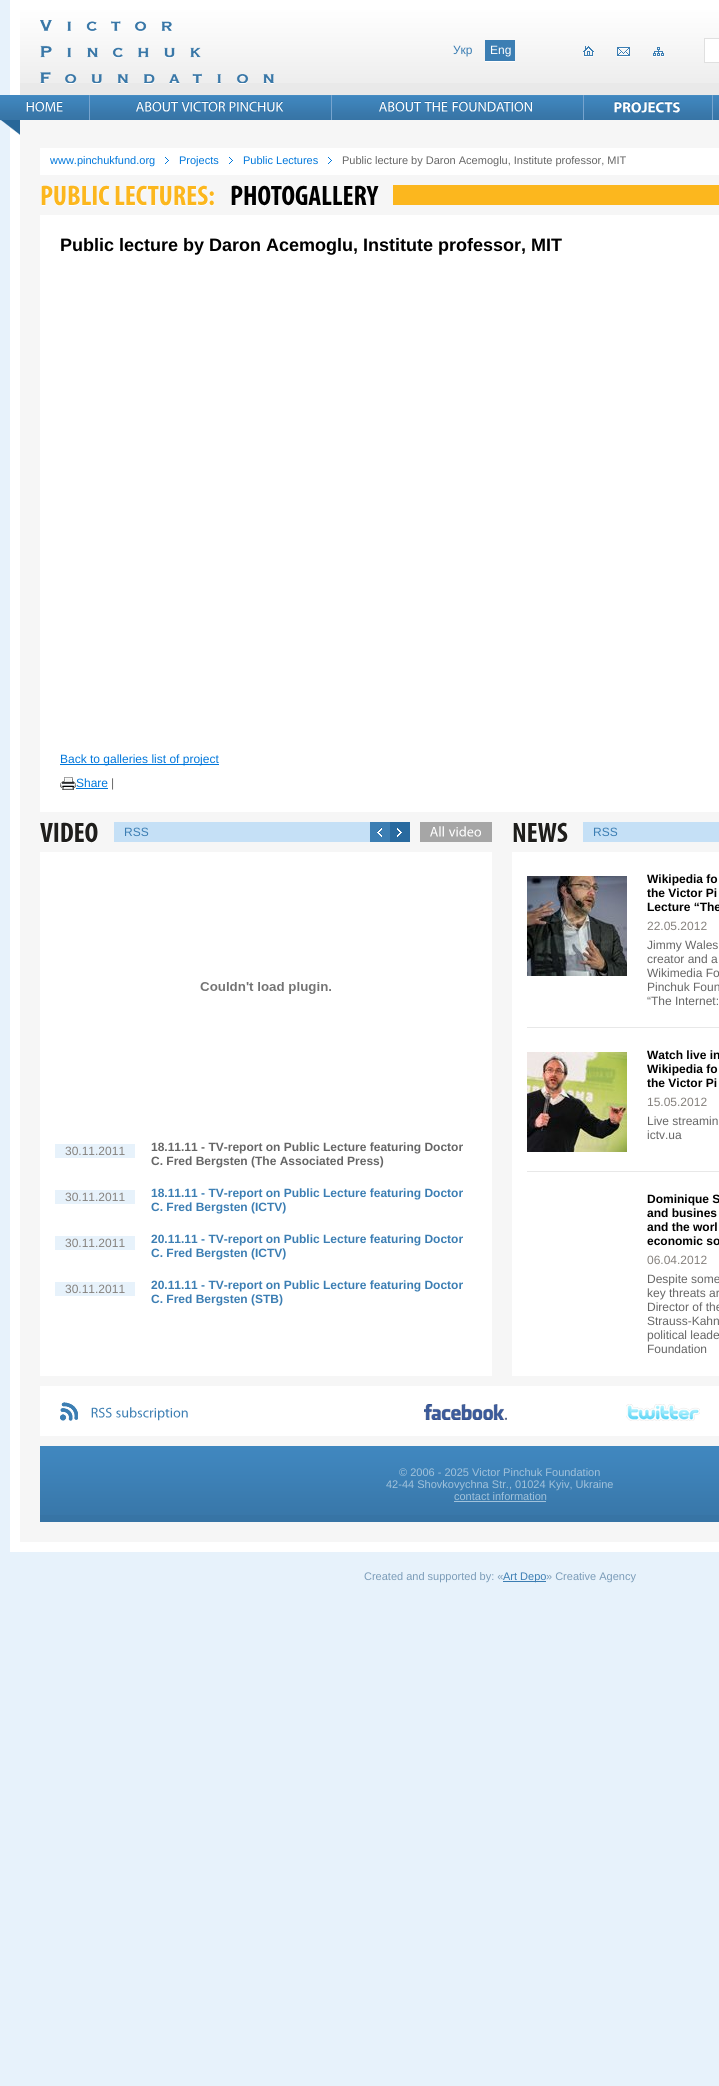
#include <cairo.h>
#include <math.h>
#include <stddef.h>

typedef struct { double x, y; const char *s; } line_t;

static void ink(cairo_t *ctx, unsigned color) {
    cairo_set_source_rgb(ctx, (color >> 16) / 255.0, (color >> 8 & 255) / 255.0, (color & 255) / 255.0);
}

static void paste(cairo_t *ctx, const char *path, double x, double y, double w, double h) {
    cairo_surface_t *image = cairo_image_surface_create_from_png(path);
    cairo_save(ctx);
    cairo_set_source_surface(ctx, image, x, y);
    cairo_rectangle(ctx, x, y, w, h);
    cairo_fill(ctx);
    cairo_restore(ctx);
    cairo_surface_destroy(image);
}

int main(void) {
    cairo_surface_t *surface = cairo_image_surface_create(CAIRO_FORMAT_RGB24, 719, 2086);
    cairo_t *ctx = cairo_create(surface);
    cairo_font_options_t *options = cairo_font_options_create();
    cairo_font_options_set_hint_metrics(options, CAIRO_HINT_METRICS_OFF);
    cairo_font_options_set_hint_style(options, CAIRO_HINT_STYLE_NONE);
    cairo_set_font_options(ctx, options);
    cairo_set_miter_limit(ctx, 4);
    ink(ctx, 0xE7F2FB);
    cairo_paint(ctx);
    ink(ctx, 0xF6F6F6);
    cairo_rectangle(ctx, 20, 95, 699, 1447);
    cairo_fill(ctx);
    cairo_rectangle(ctx, 15, 5, 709, 1542);
    ink(ctx, 0xFFFFFF);
    cairo_set_line_width(ctx, 10);
    cairo_stroke(ctx);
    ink(ctx, 0xE9E9E9);
    cairo_rectangle(ctx, 20, 83, 699, 12);
    cairo_fill(ctx);
    paste(ctx, "media/1.png", 20, 10, 699, 73);
    paste(ctx, "media/2.png", 40, 20, 234, 64);
    cairo_select_font_face(ctx, "Liberation Sans", CAIRO_FONT_SLANT_NORMAL, CAIRO_FONT_WEIGHT_NORMAL);
    cairo_set_font_size(ctx, 12);
    ink(ctx, 0x3C7EB3);
    cairo_move_to(ctx, 453, 54);
    cairo_show_text(ctx, "Укр");
    cairo_rectangle(ctx, 485, 40, 30, 21);
    cairo_fill(ctx);
    ink(ctx, 0xFFFFFF);
    cairo_rectangle(ctx, 485, 61, 30, 1);
    cairo_fill(ctx);
    cairo_move_to(ctx, 490, 54);
    cairo_show_text(ctx, "Eng");
    paste(ctx, "media/3.png", 583, 46, 11, 11);
    paste(ctx, "media/4.png", 617, 47, 13, 10);
    paste(ctx, "media/5.png", 653, 47, 11, 10);
    cairo_rectangle(ctx, 704.5, 38.5, 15, 24);
    cairo_fill_preserve(ctx);
    ink(ctx, 0xE0E0E0);
    cairo_set_line_width(ctx, 1);
    cairo_stroke(ctx);
    paste(ctx, "media/6.png", 0, 95, 20, 40);
    paste(ctx, "media/7.png", 0, 95, 719, 25);
    paste(ctx, "media/8.png", 26, 100, 37, 12);
    paste(ctx, "media/9.png", 89, 95, 1, 25);
    paste(ctx, "media/10.png", 136, 100, 42, 12);
    paste(ctx, "media/11.png", 181, 100, 44, 12);
    paste(ctx, "media/12.png", 229, 100, 55, 12);
    paste(ctx, "media/9.png", 331, 95, 1, 25);
    paste(ctx, "media/10.png", 379, 100, 42, 12);
    paste(ctx, "media/13.png", 424, 101, 24, 11);
    paste(ctx, "media/14.png", 452, 100, 80, 12);
    paste(ctx, "media/9.png", 583, 95, 1, 25);
    paste(ctx, "media/15.png", 614, 101, 66, 12);
    paste(ctx, "media/9.png", 712, 95, 1, 25);
    ink(ctx, 0xFFFFFF);
    cairo_rectangle(ctx, 40, 148, 679, 27);
    cairo_fill(ctx);
    cairo_set_font_size(ctx, 11);
    ink(ctx, 0x0077DB);
    cairo_move_to(ctx, 50, 164);
    cairo_show_text(ctx, "www.pinchukfund.org");
    paste(ctx, "media/16.png", 165, 157, 4, 7);
    cairo_move_to(ctx, 179, 164);
    cairo_show_text(ctx, "Projects");
    paste(ctx, "media/16.png", 229, 157, 4, 7);
    cairo_move_to(ctx, 243, 164);
    cairo_show_text(ctx, "Public Lectures");
    paste(ctx, "media/16.png", 328, 157, 4, 7);
    ink(ctx, 0x666666);
    cairo_move_to(ctx, 342, 164);
    cairo_show_text(ctx, "Public lecture by Daron Acemoglu, Institute professor, MIT");
    ink(ctx, 0xFFFFFF);
    cairo_rectangle(ctx, 40, 215, 679, 597);
    cairo_fill(ctx);
    ink(ctx, 0xFCB71E);
    cairo_rectangle(ctx, 393, 185, 326, 20);
    cairo_fill(ctx);
    paste(ctx, "media/17.png", 41, 185, 69, 21);
    paste(ctx, "media/18.png", 115, 185, 99, 21);
    paste(ctx, "media/19.png", 231, 185, 148, 21);
    cairo_select_font_face(ctx, "Liberation Sans", CAIRO_FONT_SLANT_NORMAL, CAIRO_FONT_WEIGHT_BOLD);
    cairo_set_font_size(ctx, 18);
    ink(ctx, 0x000000);
    cairo_move_to(ctx, 60, 251);
    cairo_show_text(ctx, "Public lecture by Daron Acemoglu, Institute professor, MIT");
    ink(ctx, 0x0077DB);
    cairo_rectangle(ctx, 60, 764, 159, 1);
    cairo_fill(ctx);
    cairo_select_font_face(ctx, "Liberation Sans", CAIRO_FONT_SLANT_NORMAL, CAIRO_FONT_WEIGHT_NORMAL);
    cairo_set_font_size(ctx, 12);
    cairo_move_to(ctx, 60, 763);
    cairo_show_text(ctx, "Back to galleries list of project");
    paste(ctx, "media/20.png", 60, 777, 16, 13);
    cairo_move_to(ctx, 76, 787);
    cairo_show_text(ctx, "Share");
    cairo_rectangle(ctx, 76, 788, 32, 1);
    cairo_fill(ctx);
    ink(ctx, 0x666666);
    cairo_move_to(ctx, 111, 787);
    cairo_show_text(ctx, "|");
    ink(ctx, 0xFFFFFF);
    cairo_rectangle(ctx, 40, 852, 452, 524);
    cairo_fill(ctx);
    ink(ctx, 0xC5E0F6);
    cairo_rectangle(ctx, 114, 822, 256, 20);
    cairo_fill(ctx);
    paste(ctx, "media/21.png", 40, 822, 58, 21);
    ink(ctx, 0x3C7EB3);
    cairo_move_to(ctx, 124, 836);
    cairo_show_text(ctx, "RSS");
    paste(ctx, "media/22.png", 370, 822, 20, 20);
    paste(ctx, "media/23.png", 390, 822, 20, 20);
    ink(ctx, 0xA6A6A6);
    cairo_rectangle(ctx, 420, 822, 72, 20);
    cairo_fill(ctx);
    paste(ctx, "media/24.png", 430, 826, 14, 11);
    paste(ctx, "media/25.png", 449, 826, 32, 11);
    paste(ctx, "media/26.png", 200, 982, 131, 12);
    ink(ctx, 0xE7F2FB);
    cairo_rectangle(ctx, 55, 1144, 80, 14);
    cairo_fill(ctx);
    ink(ctx, 0x85817D);
    cairo_move_to(ctx, 65, 1155);
    cairo_show_text(ctx, "30.11.2011");
    cairo_select_font_face(ctx, "Liberation Sans", CAIRO_FONT_SLANT_NORMAL, CAIRO_FONT_WEIGHT_BOLD);
    ink(ctx, 0x666666);
    cairo_move_to(ctx, 151, 1151);
    cairo_show_text(ctx, "18.11.11 - TV-report on Public Lecture featuring Doctor");
    cairo_move_to(ctx, 151, 1165);
    cairo_show_text(ctx, "C. Fred Bergsten (The Associated Press)");
    ink(ctx, 0xE7F2FB);
    cairo_rectangle(ctx, 55, 1190, 80, 14);
    cairo_fill(ctx);
    cairo_select_font_face(ctx, "Liberation Sans", CAIRO_FONT_SLANT_NORMAL, CAIRO_FONT_WEIGHT_NORMAL);
    ink(ctx, 0x85817D);
    cairo_move_to(ctx, 65, 1201);
    cairo_show_text(ctx, "30.11.2011");
    cairo_select_font_face(ctx, "Liberation Sans", CAIRO_FONT_SLANT_NORMAL, CAIRO_FONT_WEIGHT_BOLD);
    ink(ctx, 0x3C7EB3);
    cairo_move_to(ctx, 151, 1197);
    cairo_show_text(ctx, "18.11.11 - TV-report on Public Lecture featuring Doctor");
    cairo_move_to(ctx, 151, 1211);
    cairo_show_text(ctx, "C. Fred Bergsten (ICTV)");
    ink(ctx, 0xE7F2FB);
    cairo_rectangle(ctx, 55, 1236, 80, 14);
    cairo_fill(ctx);
    cairo_select_font_face(ctx, "Liberation Sans", CAIRO_FONT_SLANT_NORMAL, CAIRO_FONT_WEIGHT_NORMAL);
    ink(ctx, 0x85817D);
    cairo_move_to(ctx, 65, 1247);
    cairo_show_text(ctx, "30.11.2011");
    cairo_select_font_face(ctx, "Liberation Sans", CAIRO_FONT_SLANT_NORMAL, CAIRO_FONT_WEIGHT_BOLD);
    ink(ctx, 0x3C7EB3);
    cairo_move_to(ctx, 151, 1243);
    cairo_show_text(ctx, "20.11.11 - TV-report on Public Lecture featuring Doctor");
    cairo_move_to(ctx, 151, 1257);
    cairo_show_text(ctx, "C. Fred Bergsten (ICTV)");
    ink(ctx, 0xE7F2FB);
    cairo_rectangle(ctx, 55, 1282, 80, 14);
    cairo_fill(ctx);
    cairo_select_font_face(ctx, "Liberation Sans", CAIRO_FONT_SLANT_NORMAL, CAIRO_FONT_WEIGHT_NORMAL);
    ink(ctx, 0x85817D);
    cairo_move_to(ctx, 65, 1293);
    cairo_show_text(ctx, "30.11.2011");
    cairo_select_font_face(ctx, "Liberation Sans", CAIRO_FONT_SLANT_NORMAL, CAIRO_FONT_WEIGHT_BOLD);
    ink(ctx, 0x3C7EB3);
    cairo_move_to(ctx, 151, 1289);
    cairo_show_text(ctx, "20.11.11 - TV-report on Public Lecture featuring Doctor");
    cairo_move_to(ctx, 151, 1303);
    cairo_show_text(ctx, "C. Fred Bergsten (STB)");
    ink(ctx, 0xFFFFFF);
    cairo_rectangle(ctx, 512, 852, 207, 524);
    cairo_fill(ctx);
    ink(ctx, 0xC5E0F6);
    cairo_rectangle(ctx, 583, 822, 136, 20);
    cairo_fill(ctx);
    paste(ctx, "media/27.png", 513, 822, 55, 21);
    cairo_select_font_face(ctx, "Liberation Sans", CAIRO_FONT_SLANT_NORMAL, CAIRO_FONT_WEIGHT_NORMAL);
    ink(ctx, 0x3C7EB3);
    cairo_move_to(ctx, 593, 836);
    cairo_show_text(ctx, "RSS");
    paste(ctx, "media/28.png", 527, 876, 100, 100);
    cairo_select_font_face(ctx, "Liberation Sans", CAIRO_FONT_SLANT_NORMAL, CAIRO_FONT_WEIGHT_BOLD);
    ink(ctx, 0x000000);
    {
        static const line_t items[] = {
            {647, 883, "Wikipedia fo"},
            {647, 897, "the Victor Pi"},
            {647, 911, "Lecture “The"},
        };
        for (size_t i = 0; i < sizeof items / sizeof *items; i++) {
            cairo_move_to(ctx, items[i].x, items[i].y);
            cairo_show_text(ctx, items[i].s);
        }
    }
    cairo_select_font_face(ctx, "Liberation Sans", CAIRO_FONT_SLANT_NORMAL, CAIRO_FONT_WEIGHT_NORMAL);
    ink(ctx, 0x85817D);
    cairo_move_to(ctx, 647, 930);
    cairo_show_text(ctx, "22.05.2012");
    ink(ctx, 0x666666);
    {
        static const line_t items[] = {
            {647, 949, "Jimmy Wales"},
            {647, 963, "creator and a"},
            {647, 977, "Wikimedia Fo"},
            {647, 991, "Pinchuk Foun"},
            {647, 1005, "“The Internet:"},
        };
        for (size_t i = 0; i < sizeof items / sizeof *items; i++) {
            cairo_move_to(ctx, items[i].x, items[i].y);
            cairo_show_text(ctx, items[i].s);
        }
    }
    ink(ctx, 0xE8E8E8);
    cairo_rectangle(ctx, 527, 1027, 192, 1);
    cairo_fill(ctx);
    paste(ctx, "media/29.png", 527, 1052, 100, 100);
    cairo_select_font_face(ctx, "Liberation Sans", CAIRO_FONT_SLANT_NORMAL, CAIRO_FONT_WEIGHT_BOLD);
    ink(ctx, 0x000000);
    {
        static const line_t items[] = {
            {647, 1059, "Watch live in"},
            {647, 1073, "Wikipedia fo"},
            {647, 1087, "the Victor Pi"},
        };
        for (size_t i = 0; i < sizeof items / sizeof *items; i++) {
            cairo_move_to(ctx, items[i].x, items[i].y);
            cairo_show_text(ctx, items[i].s);
        }
    }
    cairo_select_font_face(ctx, "Liberation Sans", CAIRO_FONT_SLANT_NORMAL, CAIRO_FONT_WEIGHT_NORMAL);
    ink(ctx, 0x85817D);
    cairo_move_to(ctx, 647, 1106);
    cairo_show_text(ctx, "15.05.2012");
    ink(ctx, 0x666666);
    cairo_move_to(ctx, 647, 1125);
    cairo_show_text(ctx, "Live streamin");
    cairo_move_to(ctx, 647, 1139);
    cairo_show_text(ctx, "ictv.ua");
    ink(ctx, 0xE8E8E8);
    cairo_rectangle(ctx, 527, 1171, 192, 1);
    cairo_fill(ctx);
    cairo_select_font_face(ctx, "Liberation Sans", CAIRO_FONT_SLANT_NORMAL, CAIRO_FONT_WEIGHT_BOLD);
    ink(ctx, 0x000000);
    {
        static const line_t items[] = {
            {647, 1203, "Dominique S"},
            {647, 1217, "and busines"},
            {647, 1231, "and the worl"},
            {647, 1245, "economic so"},
        };
        for (size_t i = 0; i < sizeof items / sizeof *items; i++) {
            cairo_move_to(ctx, items[i].x, items[i].y);
            cairo_show_text(ctx, items[i].s);
        }
    }
    cairo_select_font_face(ctx, "Liberation Sans", CAIRO_FONT_SLANT_NORMAL, CAIRO_FONT_WEIGHT_NORMAL);
    ink(ctx, 0x85817D);
    cairo_move_to(ctx, 647, 1264);
    cairo_show_text(ctx, "06.04.2012");
    ink(ctx, 0x666666);
    {
        static const line_t items[] = {
            {647, 1283, "Despite some"},
            {647, 1297, "key threats ar"},
            {647, 1311, "Director of the"},
            {647, 1325, "Strauss-Kahn"},
            {647, 1339, "political leade"},
            {647, 1353, "Foundation"},
        };
        for (size_t i = 0; i < sizeof items / sizeof *items; i++) {
            cairo_move_to(ctx, items[i].x, items[i].y);
            cairo_show_text(ctx, items[i].s);
        }
    }
    ink(ctx, 0xFFFFFF);
    cairo_rectangle(ctx, 40, 1386, 679, 50);
    cairo_fill(ctx);
    paste(ctx, "media/30.png", 60, 1402, 18, 19);
    paste(ctx, "media/31.png", 91, 1407, 21, 11);
    paste(ctx, "media/32.png", 116, 1407, 72, 14);
    paste(ctx, "media/33.png", 424, 1404, 83, 16);
    paste(ctx, "media/34.png", 626, 1404, 74, 17);
    ink(ctx, 0x3774A5);
    cairo_rectangle(ctx, 40, 1515, 679, 7);
    cairo_fill(ctx);
    paste(ctx, "media/35.png", 40, 1446, 679, 69);
    cairo_set_font_size(ctx, 11);
    ink(ctx, 0xA1C2DB);
    {
        static const line_t items[] = {
            {399, 1476, "© 2006 - 2025 Victor Pinchuk Foundation"},
            {386, 1488, "42-44 Shovkovychna Str., 01024 Kyiv, Ukraine"},
            {454, 1500, "contact information"},
        };
        for (size_t i = 0; i < sizeof items / sizeof *items; i++) {
            cairo_move_to(ctx, items[i].x, items[i].y);
            cairo_show_text(ctx, items[i].s);
        }
    }
    cairo_rectangle(ctx, 454, 1501, 92, 1);
    cairo_fill(ctx);
    ink(ctx, 0x7B9CB8);
    cairo_move_to(ctx, 364, 1580);
    cairo_show_text(ctx, "Created and supported by: «");
    ink(ctx, 0x3C7EB3);
    cairo_rectangle(ctx, 503, 1581, 43, 1);
    cairo_fill(ctx);
    cairo_move_to(ctx, 503, 1580);
    cairo_show_text(ctx, "Art Depo");
    ink(ctx, 0x7B9CB8);
    cairo_move_to(ctx, 546, 1580);
    cairo_show_text(ctx, "» Creative Agency");
    cairo_surface_write_to_png(surface, "image.png");
    cairo_font_options_destroy(options);
    cairo_destroy(ctx);
    cairo_surface_destroy(surface);
    return 0;
}
